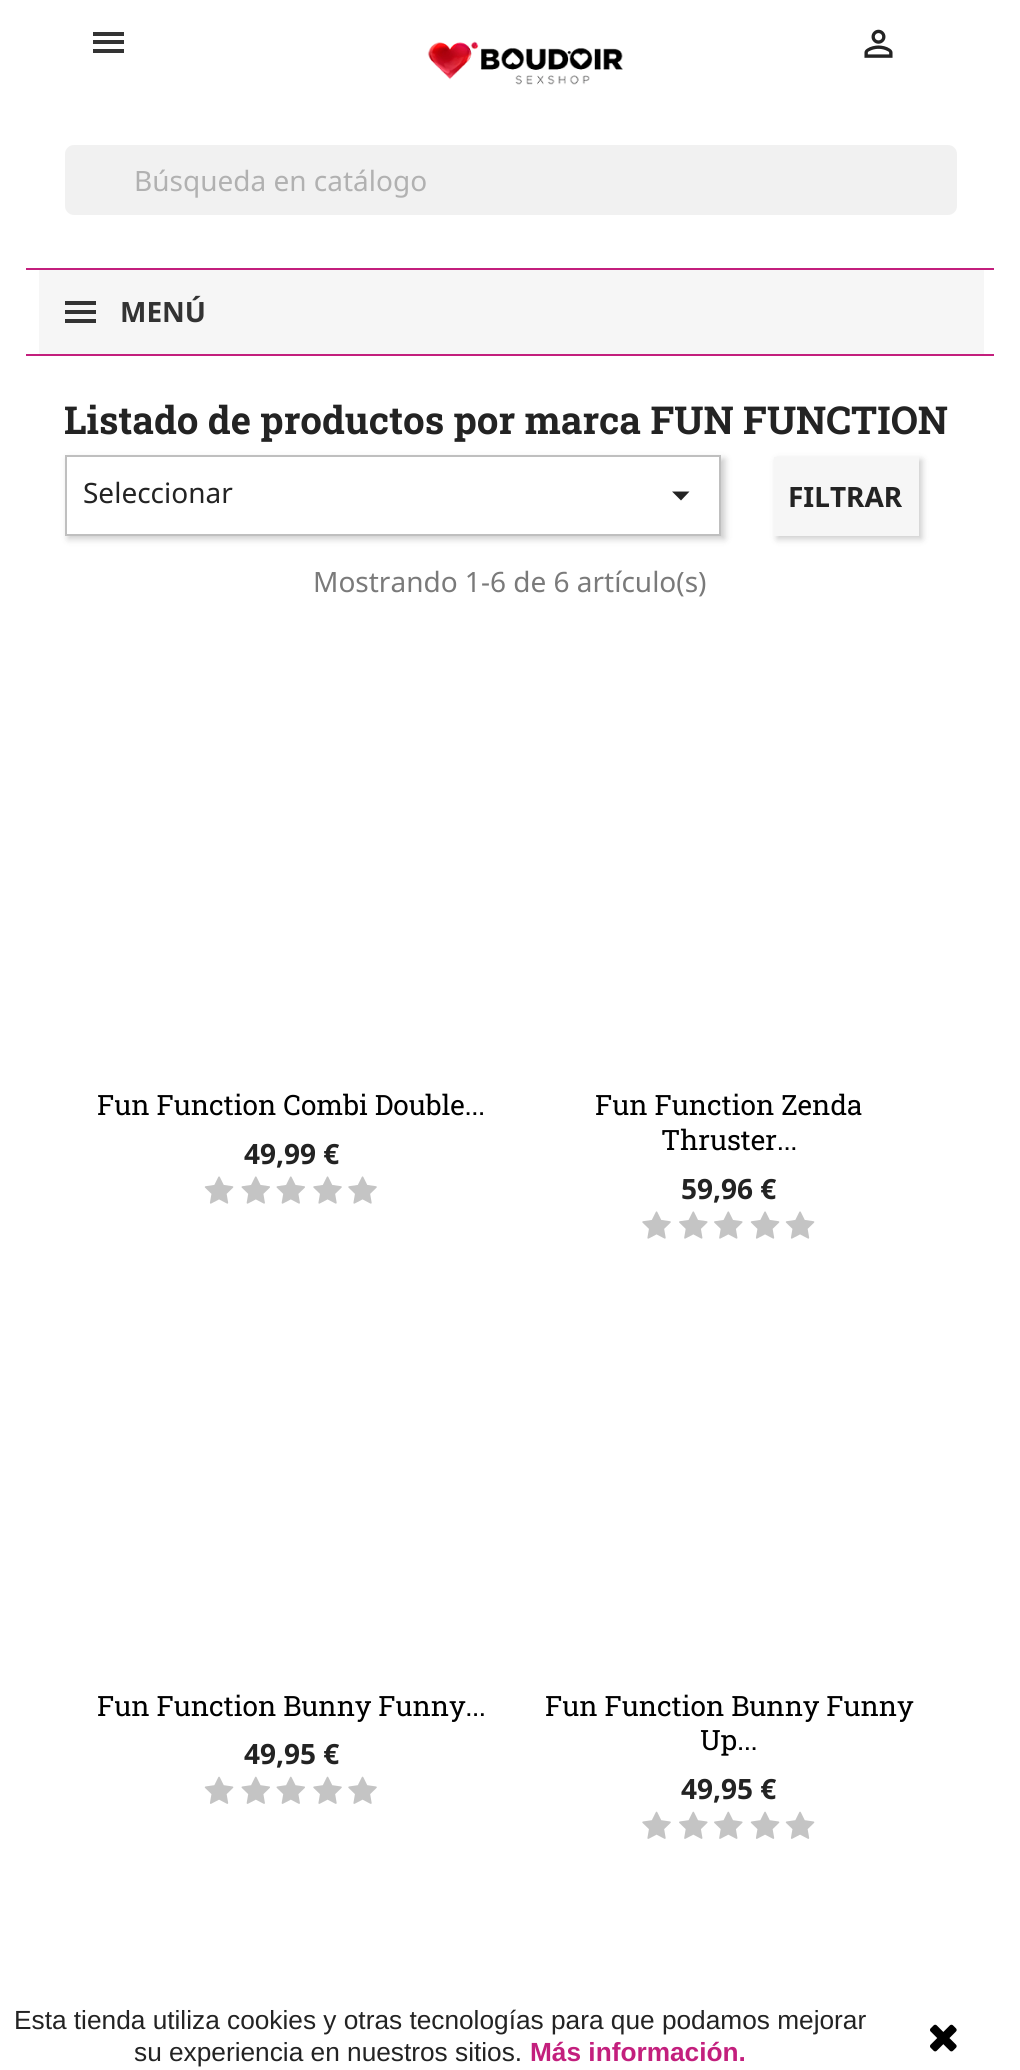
#include <cairo.h>
#include <math.h>
#include <stddef.h>

typedef struct { double x, y, w, h; unsigned color; } box_t;

static void ink(cairo_t *ctx, unsigned color) {
    cairo_set_source_rgb(ctx, (color >> 16) / 255.0, (color >> 8 & 255) / 255.0, (color & 255) / 255.0);
}

static void round_path(cairo_t *ctx, double x, double y, double w, double h, double r) {
    cairo_new_sub_path(ctx);
    cairo_arc(ctx, x + w - r, y + h - r, r, 0, M_PI / 2);
    cairo_arc(ctx, x + r, y + h - r, r, M_PI / 2, M_PI);
    cairo_arc(ctx, x + r, y + r, r, M_PI, 1.5 * M_PI);
    cairo_arc(ctx, x + w - r, y + r, r, 1.5 * M_PI, 2 * M_PI);
    cairo_close_path(ctx);
}

static void blur_box(cairo_t *ctx, double x, double y, double w, double h, double r, double blur, double alpha) {
    cairo_push_group_with_content(ctx, CAIRO_CONTENT_ALPHA);
    cairo_set_operator(ctx, CAIRO_OPERATOR_SOURCE);
    for (int i = 15; i >= -15 && fmin(w, h) + blur * i / 3 > 0; i -= 2) {
        double e = blur * i / 6;
        cairo_set_source_rgba(ctx, 0, 0, 0, alpha * erfc((i - 1) / 8.5) / 2);
        round_path(ctx, x - e, y - e, w + 2 * e, h + 2 * e, fmax(0, fmin(r + e + blur * .6, fmin(w, h) / 2 + e)));
        cairo_fill(ctx);
    }
    cairo_pattern_t *soft = cairo_pop_group(ctx);
    cairo_mask(ctx, soft);
    cairo_pattern_destroy(soft);
}

static void paste(cairo_t *ctx, const char *path, double x, double y, double w, double h) {
    cairo_surface_t *image = cairo_image_surface_create_from_png(path);
    cairo_save(ctx);
    cairo_set_source_surface(ctx, image, x, y);
    cairo_rectangle(ctx, x, y, w, h);
    cairo_fill(ctx);
    cairo_restore(ctx);
    cairo_surface_destroy(image);
}

int main(void) {
    cairo_surface_t *surface = cairo_image_surface_create(CAIRO_FORMAT_RGB24, 1020, 2070);
    cairo_t *ctx = cairo_create(surface);
    cairo_font_options_t *options = cairo_font_options_create();
    cairo_font_options_set_hint_metrics(options, CAIRO_HINT_METRICS_OFF);
    cairo_font_options_set_hint_style(options, CAIRO_HINT_STYLE_NONE);
    cairo_set_font_options(ctx, options);
    cairo_set_miter_limit(ctx, 4);
    ink(ctx, 0xFFFFFF);
    cairo_paint(ctx);
    {
        static const box_t items[] = {
            {93, 32, 31, 4, 0x333333},
            {93, 40, 31, 4, 0x333333},
            {93, 49, 31, 4, 0x333333},
        };
        for (size_t i = 0; i < sizeof items / sizeof *items; i++) {
            ink(ctx, items[i].color);
            cairo_rectangle(ctx, items[i].x, items[i].y, items[i].w, items[i].h);
            cairo_fill(ctx);
        }
    }
    paste(ctx, "media/1.png", 427, 41, 196, 44);
    paste(ctx, "media/2.png", 864, 29, 29, 29);
    ink(ctx, 0xF1F1F1);
    round_path(ctx, 65, 145, 892, 70, 9);
    cairo_fill(ctx);
    cairo_select_font_face(ctx, "Noto Sans", CAIRO_FONT_SLANT_NORMAL, CAIRO_FONT_WEIGHT_NORMAL);
    cairo_set_font_size(ctx, 28);
    ink(ctx, 0xB1B1B1);
    cairo_move_to(ctx, 134, 191);
    cairo_show_text(ctx, "Búsqueda en catálogo");
    {
        static const box_t items[] = {
            {26, 268, 968, 2, 0xC31F7D},
            {26, 354, 968, 2, 0xC31F7D},
            {39, 270, 945, 84, 0xF6F6F6},
            {65, 301, 31, 4, 0x333333},
            {65, 310, 31, 4, 0x333333},
            {65, 319, 31, 4, 0x333333},
        };
        for (size_t i = 0; i < sizeof items / sizeof *items; i++) {
            ink(ctx, items[i].color);
            cairo_rectangle(ctx, items[i].x, items[i].y, items[i].w, items[i].h);
            cairo_fill(ctx);
        }
    }
    cairo_select_font_face(ctx, "Noto Sans", CAIRO_FONT_SLANT_NORMAL, CAIRO_FONT_WEIGHT_BOLD);
    cairo_move_to(ctx, 120, 322);
    cairo_show_text(ctx, "MENÚ");
    cairo_select_font_face(ctx, "Roboto Slab", CAIRO_FONT_SLANT_NORMAL, CAIRO_FONT_WEIGHT_BOLD);
    cairo_set_font_size(ctx, 38.5);
    ink(ctx, 0x232323);
    cairo_move_to(ctx, 64, 434);
    cairo_show_text(ctx, "Listado de productos por marca FUN FUNCTION");
    ink(ctx, 0x000000);
    blur_box(ctx, 68, 459, 657, 80, 0, 3.5, 0.2);
    ink(ctx, 0xFFFFFF);
    cairo_rectangle(ctx, 66, 456, 654, 79);
    cairo_fill_preserve(ctx);
    ink(ctx, 0xBFBFBF);
    cairo_stroke(ctx);
    cairo_select_font_face(ctx, "Noto Sans", CAIRO_FONT_SLANT_NORMAL, CAIRO_FONT_WEIGHT_NORMAL);
    cairo_set_font_size(ctx, 28);
    ink(ctx, 0x232323);
    cairo_move_to(ctx, 83, 503);
    cairo_show_text(ctx, "Seleccionar");
    cairo_new_path(ctx);
    cairo_move_to(ctx, 672, 491.5);
    cairo_line_to(ctx, 689.5, 491.5);
    cairo_line_to(ctx, 681, 500.5);
    cairo_close_path(ctx);
    cairo_fill(ctx);
    ink(ctx, 0x000000);
    blur_box(ctx, 777, 460, 145, 79, 0, 3.5, 0.2);
    ink(ctx, 0xF6F6F6);
    cairo_rectangle(ctx, 774, 457, 145, 79);
    cairo_fill(ctx);
    cairo_select_font_face(ctx, "Noto Sans", CAIRO_FONT_SLANT_NORMAL, CAIRO_FONT_WEIGHT_BOLD);
    ink(ctx, 0x232323);
    cairo_move_to(ctx, 788, 507);
    cairo_show_text(ctx, "FILTRAR");
    cairo_select_font_face(ctx, "Noto Sans", CAIRO_FONT_SLANT_NORMAL, CAIRO_FONT_WEIGHT_NORMAL);
    ink(ctx, 0x7A7A7A);
    cairo_move_to(ctx, 313, 592);
    cairo_show_text(ctx, "Mostrando 1-6 de 6 artículo(s)");
    cairo_select_font_face(ctx, "Roboto Slab", CAIRO_FONT_SLANT_NORMAL, CAIRO_FONT_WEIGHT_NORMAL);
    ink(ctx, 0x000000);
    cairo_move_to(ctx, 97, 1115);
    cairo_show_text(ctx, "Fun Function Combi Double...");
    cairo_select_font_face(ctx, "Noto Sans", CAIRO_FONT_SLANT_NORMAL, CAIRO_FONT_WEIGHT_BOLD);
    ink(ctx, 0x232323);
    cairo_move_to(ctx, 244, 1164);
    cairo_show_text(ctx, "49,99 €");
    paste(ctx, "media/3.png", 204, 1176, 30, 28);
    paste(ctx, "media/4.png", 241, 1176, 29, 28);
    paste(ctx, "media/4.png", 276, 1176, 29, 28);
    paste(ctx, "media/5.png", 313, 1176, 29, 28);
    paste(ctx, "media/5.png", 348, 1176, 29, 28);
    cairo_select_font_face(ctx, "Roboto Slab", CAIRO_FONT_SLANT_NORMAL, CAIRO_FONT_WEIGHT_NORMAL);
    ink(ctx, 0x000000);
    cairo_move_to(ctx, 595, 1115);
    cairo_show_text(ctx, "Fun Function Zenda");
    cairo_move_to(ctx, 661, 1150);
    cairo_show_text(ctx, "Thruster...");
    cairo_select_font_face(ctx, "Noto Sans", CAIRO_FONT_SLANT_NORMAL, CAIRO_FONT_WEIGHT_BOLD);
    ink(ctx, 0x232323);
    cairo_move_to(ctx, 681, 1199);
    cairo_show_text(ctx, "59,96 €");
    paste(ctx, "media/5.png", 642, 1211, 29, 28);
    paste(ctx, "media/6.png", 679, 1211, 29, 28);
    paste(ctx, "media/6.png", 714, 1211, 29, 28);
    paste(ctx, "media/3.png", 750, 1211, 30, 28);
    paste(ctx, "media/3.png", 785, 1211, 30, 28);
    cairo_select_font_face(ctx, "Roboto Slab", CAIRO_FONT_SLANT_NORMAL, CAIRO_FONT_WEIGHT_NORMAL);
    ink(ctx, 0x000000);
    cairo_move_to(ctx, 97, 1716);
    cairo_show_text(ctx, "Fun Function Bunny Funny...");
    cairo_select_font_face(ctx, "Noto Sans", CAIRO_FONT_SLANT_NORMAL, CAIRO_FONT_WEIGHT_BOLD);
    ink(ctx, 0x232323);
    cairo_move_to(ctx, 244, 1764);
    cairo_show_text(ctx, "49,95 €");
    paste(ctx, "media/7.png", 204, 1776, 30, 28);
    paste(ctx, "media/8.png", 241, 1776, 29, 28);
    paste(ctx, "media/8.png", 276, 1776, 29, 28);
    paste(ctx, "media/9.png", 313, 1776, 29, 28);
    paste(ctx, "media/9.png", 348, 1776, 29, 28);
    cairo_select_font_face(ctx, "Roboto Slab", CAIRO_FONT_SLANT_NORMAL, CAIRO_FONT_WEIGHT_NORMAL);
    ink(ctx, 0x000000);
    cairo_move_to(ctx, 545, 1716);
    cairo_show_text(ctx, "Fun Function Bunny Funny");
    cairo_move_to(ctx, 700, 1750);
    cairo_show_text(ctx, "Up...");
    cairo_select_font_face(ctx, "Noto Sans", CAIRO_FONT_SLANT_NORMAL, CAIRO_FONT_WEIGHT_BOLD);
    ink(ctx, 0x232323);
    cairo_move_to(ctx, 681, 1799);
    cairo_show_text(ctx, "49,95 €");
    paste(ctx, "media/9.png", 642, 1811, 29, 28);
    paste(ctx, "media/10.png", 679, 1811, 29, 28);
    paste(ctx, "media/10.png", 714, 1811, 29, 28);
    paste(ctx, "media/7.png", 750, 1811, 30, 28);
    paste(ctx, "media/7.png", 785, 1811, 30, 28);
    cairo_select_font_face(ctx, "Liberation Sans", CAIRO_FONT_SLANT_NORMAL, CAIRO_FONT_WEIGHT_NORMAL);
    cairo_set_font_size(ctx, 26.25);
    cairo_move_to(ctx, 14, 2029);
    cairo_show_text(ctx, "Esta tienda utiliza cookies y otras tecnologías para que podamos mejorar");
    cairo_move_to(ctx, 134, 2061);
    cairo_show_text(ctx, "su experiencia en nuestros sitios.");
    cairo_select_font_face(ctx, "Liberation Sans", CAIRO_FONT_SLANT_NORMAL, CAIRO_FONT_WEIGHT_BOLD);
    ink(ctx, 0xC31F7D);
    cairo_move_to(ctx, 530, 2061);
    cairo_show_text(ctx, "Más información.");
    paste(ctx, "media/11.png", 930, 2024, 27, 28);
    cairo_surface_write_to_png(surface, "image.png");
    cairo_font_options_destroy(options);
    cairo_destroy(ctx);
    cairo_surface_destroy(surface);
    return 0;
}
